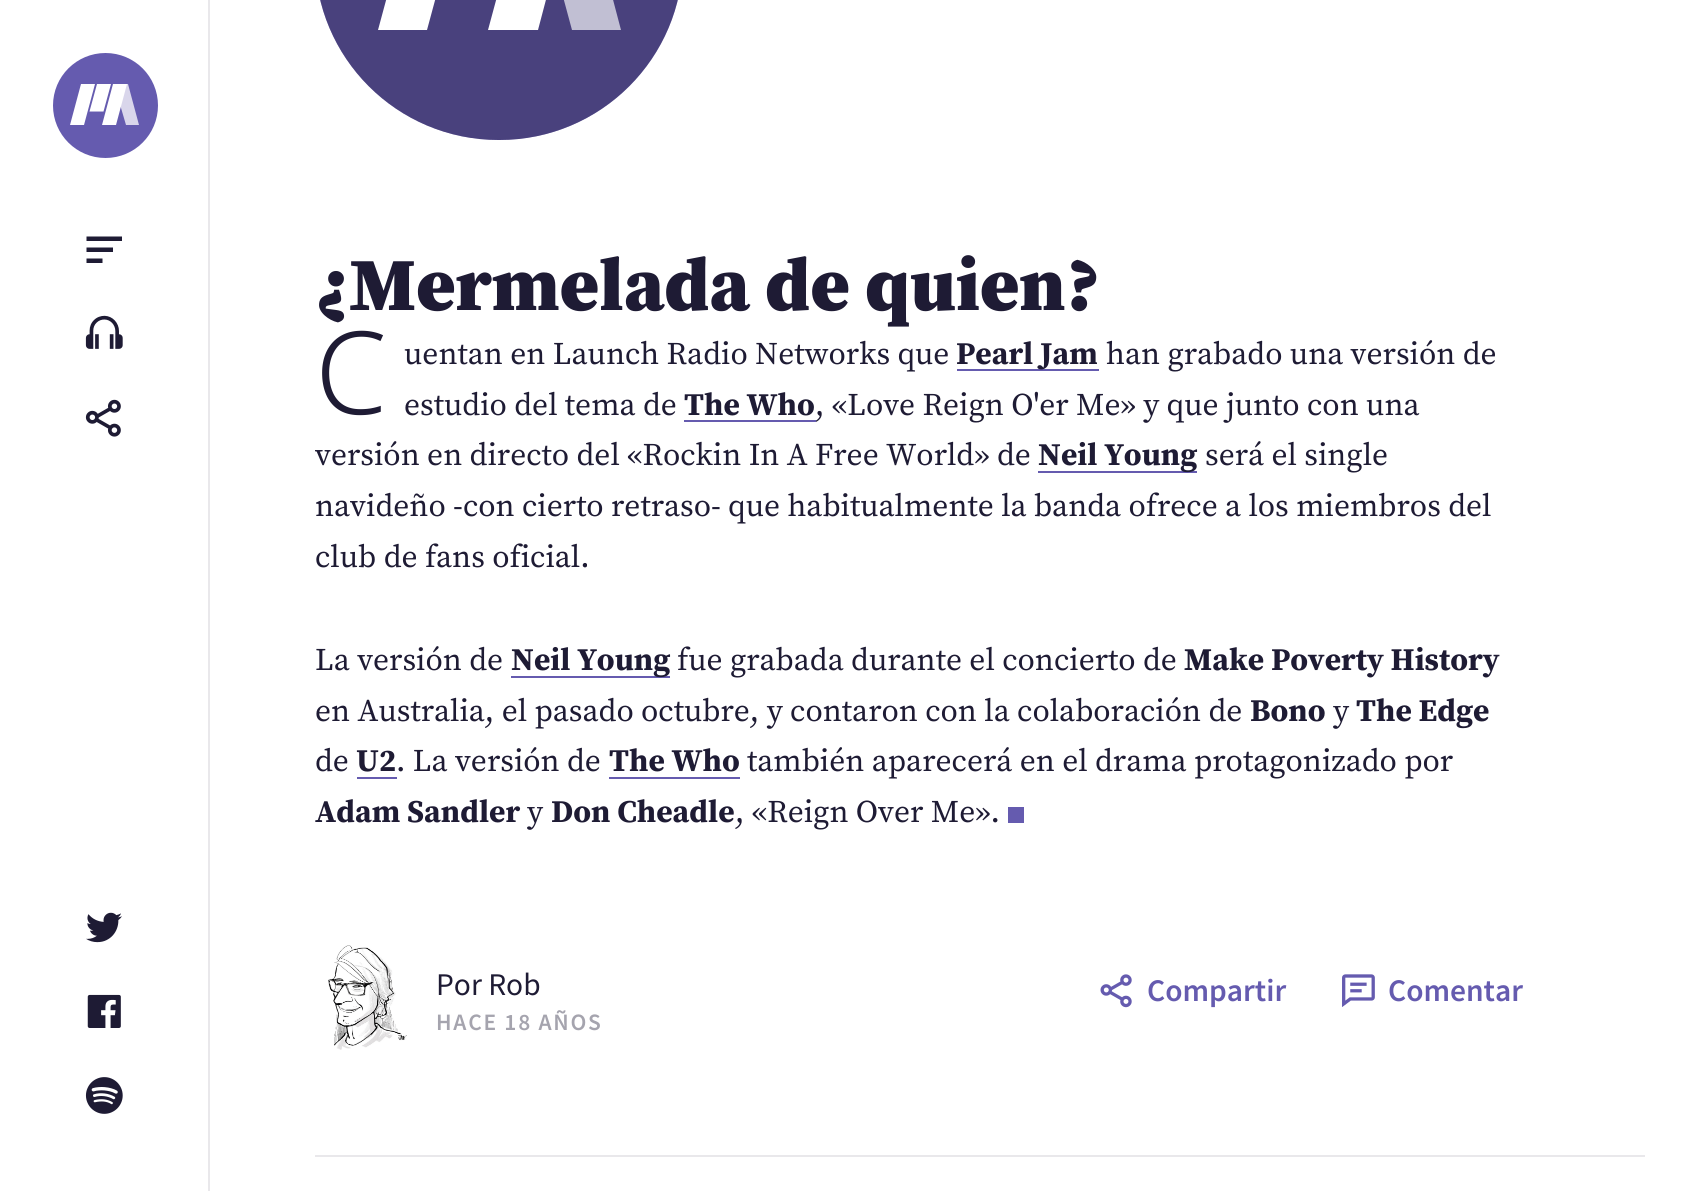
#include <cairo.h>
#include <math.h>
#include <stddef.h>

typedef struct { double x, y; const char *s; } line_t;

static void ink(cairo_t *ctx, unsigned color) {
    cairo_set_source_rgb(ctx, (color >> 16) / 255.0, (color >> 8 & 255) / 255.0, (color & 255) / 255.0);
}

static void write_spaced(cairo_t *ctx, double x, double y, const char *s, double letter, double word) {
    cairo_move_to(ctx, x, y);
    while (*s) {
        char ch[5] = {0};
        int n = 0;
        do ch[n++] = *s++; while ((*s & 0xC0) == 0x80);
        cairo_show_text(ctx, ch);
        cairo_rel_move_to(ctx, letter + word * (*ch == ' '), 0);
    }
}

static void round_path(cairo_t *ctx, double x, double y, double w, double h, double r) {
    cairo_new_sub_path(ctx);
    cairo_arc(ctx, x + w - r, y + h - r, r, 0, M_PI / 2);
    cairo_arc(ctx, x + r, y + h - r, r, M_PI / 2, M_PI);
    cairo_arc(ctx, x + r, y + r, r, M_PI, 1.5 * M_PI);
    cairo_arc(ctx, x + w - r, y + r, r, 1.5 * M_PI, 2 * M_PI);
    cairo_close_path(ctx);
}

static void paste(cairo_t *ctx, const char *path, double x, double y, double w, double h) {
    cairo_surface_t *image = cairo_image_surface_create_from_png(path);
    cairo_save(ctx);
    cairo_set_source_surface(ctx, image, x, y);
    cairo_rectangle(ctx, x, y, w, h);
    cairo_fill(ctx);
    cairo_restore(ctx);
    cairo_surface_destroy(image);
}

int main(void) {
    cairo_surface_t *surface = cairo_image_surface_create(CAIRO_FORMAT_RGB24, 1697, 1191);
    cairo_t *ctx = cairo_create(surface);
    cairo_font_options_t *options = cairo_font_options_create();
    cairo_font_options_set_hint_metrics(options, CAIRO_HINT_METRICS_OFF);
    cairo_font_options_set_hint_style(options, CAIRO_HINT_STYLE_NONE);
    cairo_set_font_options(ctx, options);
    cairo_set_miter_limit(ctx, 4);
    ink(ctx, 0xFFFFFF);
    cairo_paint(ctx);
    ink(ctx, 0xE9E8EB);
    cairo_rectangle(ctx, 208, 0, 2, 1191);
    cairo_fill(ctx);
    ink(ctx, 0x655BAF);
    cairo_arc(ctx, 105.5, 105.5, 52.5, 0, 2 * M_PI);
    cairo_fill(ctx);
    ink(ctx, 0xFFFFFF);
    cairo_new_path(ctx);
    cairo_move_to(ctx, 84, 125);
    cairo_line_to(ctx, 70, 125);
    cairo_line_to(ctx, 81, 84);
    cairo_line_to(ctx, 95, 84);
    cairo_close_path(ctx);
    cairo_fill(ctx);
    cairo_new_path(ctx);
    cairo_move_to(ctx, 103.5, 111.5);
    cairo_line_to(ctx, 89.5, 111.5);
    cairo_line_to(ctx, 97, 84);
    cairo_line_to(ctx, 111, 84);
    cairo_close_path(ctx);
    cairo_fill(ctx);
    ink(ctx, 0xD9D6EB);
    cairo_new_path(ctx);
    cairo_move_to(ctx, 126, 125);
    cairo_line_to(ctx, 139, 125);
    cairo_line_to(ctx, 128, 84);
    cairo_line_to(ctx, 114, 84);
    cairo_close_path(ctx);
    cairo_fill(ctx);
    ink(ctx, 0xFFFFFF);
    cairo_new_path(ctx);
    cairo_move_to(ctx, 116, 125);
    cairo_line_to(ctx, 102, 125);
    cairo_line_to(ctx, 113, 84);
    cairo_line_to(ctx, 127, 84);
    cairo_close_path(ctx);
    cairo_fill(ctx);
    ink(ctx, 0x1E1B34);
    cairo_new_path(ctx);
    cairo_move_to(ctx, 86.5, 247.5);
    cairo_line_to(ctx, 113, 247.5);
    cairo_line_to(ctx, 113, 252);
    cairo_line_to(ctx, 86.5, 252);
    cairo_close_path(ctx);
    cairo_move_to(ctx, 86.5, 236.5);
    cairo_line_to(ctx, 122, 236.5);
    cairo_line_to(ctx, 122, 241);
    cairo_line_to(ctx, 86.5, 241);
    cairo_close_path(ctx);
    cairo_move_to(ctx, 86.5, 263);
    cairo_line_to(ctx, 102.5, 263);
    cairo_line_to(ctx, 102.5, 258.5);
    cairo_line_to(ctx, 86.5, 258.5);
    cairo_close_path(ctx);
    cairo_fill(ctx);
    paste(ctx, "media/1.png", 85, 315, 38, 34);
    paste(ctx, "media/2.png", 85, 399, 36, 38);
    paste(ctx, "media/3.png", 86, 912, 36, 31);
    paste(ctx, "media/4.png", 87, 994, 34, 34);
    paste(ctx, "media/5.png", 85, 1077, 38, 37);
    ink(ctx, 0x655BAF);
    round_path(ctx, 315, -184, 368, 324, 183.5);
    cairo_fill(ctx);
    cairo_set_source_rgba(ctx, 0.118, 0.106, 0.204, 0.4);
    round_path(ctx, 315, -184, 368, 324, 183.5);
    cairo_fill(ctx);
    ink(ctx, 0xFFFFFF);
    cairo_new_path(ctx);
    cairo_move_to(ctx, 427, 30);
    cairo_line_to(ctx, 378, 30);
    cairo_line_to(ctx, 418, -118);
    cairo_line_to(ctx, 467, -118);
    cairo_fill(ctx);
    ink(ctx, 0xC1BFD3);
    cairo_new_path(ctx);
    cairo_move_to(ctx, 621, 30);
    cairo_line_to(ctx, 572, 30);
    cairo_line_to(ctx, 532, -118);
    cairo_line_to(ctx, 582, -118);
    cairo_fill(ctx);
    ink(ctx, 0xFFFFFF);
    cairo_new_path(ctx);
    cairo_move_to(ctx, 538, 30);
    cairo_line_to(ctx, 488, 30);
    cairo_line_to(ctx, 528, -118);
    cairo_line_to(ctx, 577, -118);
    cairo_fill(ctx);
    cairo_select_font_face(ctx, "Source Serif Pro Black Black", CAIRO_FONT_SLANT_NORMAL, CAIRO_FONT_WEIGHT_NORMAL);
    cairo_set_font_size(ctx, 74.75);
    ink(ctx, 0x1E1B34);
    cairo_move_to(ctx, 315, 310);
    cairo_show_text(ctx, "¿Mermelada de quien?");
    cairo_select_font_face(ctx, "Noto Sans Light", CAIRO_FONT_SLANT_NORMAL, CAIRO_FONT_WEIGHT_NORMAL);
    cairo_set_font_size(ctx, 115);
    cairo_move_to(ctx, 315, 414);
    cairo_show_text(ctx, "C");
    cairo_select_font_face(ctx, "Source Serif Pro", CAIRO_FONT_SLANT_NORMAL, CAIRO_FONT_WEIGHT_NORMAL);
    cairo_set_font_size(ctx, 31.5);
    cairo_move_to(ctx, 404, 364);
    cairo_show_text(ctx, "uentan en Launch Radio Networks que");
    ink(ctx, 0x655BAF);
    cairo_rectangle(ctx, 957, 369, 142, 2);
    cairo_fill(ctx);
    cairo_select_font_face(ctx, "Source Serif Pro", CAIRO_FONT_SLANT_NORMAL, CAIRO_FONT_WEIGHT_BOLD);
    ink(ctx, 0x1E1B34);
    cairo_move_to(ctx, 956, 364);
    cairo_show_text(ctx, "Pearl Jam");
    cairo_select_font_face(ctx, "Source Serif Pro", CAIRO_FONT_SLANT_NORMAL, CAIRO_FONT_WEIGHT_NORMAL);
    cairo_move_to(ctx, 1106, 364);
    cairo_show_text(ctx, "han grabado una versión de");
    cairo_move_to(ctx, 404, 415);
    cairo_show_text(ctx, "estudio del tema de");
    cairo_select_font_face(ctx, "Source Serif Pro", CAIRO_FONT_SLANT_NORMAL, CAIRO_FONT_WEIGHT_BOLD);
    cairo_move_to(ctx, 684, 415);
    cairo_show_text(ctx, "The Who");
    cairo_select_font_face(ctx, "Source Serif Pro", CAIRO_FONT_SLANT_NORMAL, CAIRO_FONT_WEIGHT_NORMAL);
    cairo_move_to(ctx, 815, 415);
    cairo_show_text(ctx, ", «Love Reign O'er Me» y que junto con una");
    ink(ctx, 0x655BAF);
    cairo_rectangle(ctx, 684, 420, 132, 2);
    cairo_fill(ctx);
    ink(ctx, 0x1E1B34);
    cairo_move_to(ctx, 315, 465);
    cairo_show_text(ctx, "versión en directo del «Rockin In A Free World» de");
    ink(ctx, 0x655BAF);
    cairo_rectangle(ctx, 1038, 471, 159, 2);
    cairo_fill(ctx);
    cairo_select_font_face(ctx, "Source Serif Pro", CAIRO_FONT_SLANT_NORMAL, CAIRO_FONT_WEIGHT_BOLD);
    ink(ctx, 0x1E1B34);
    cairo_move_to(ctx, 1038, 465);
    cairo_show_text(ctx, "Neil Young");
    cairo_select_font_face(ctx, "Source Serif Pro", CAIRO_FONT_SLANT_NORMAL, CAIRO_FONT_WEIGHT_NORMAL);
    {
        static const line_t items[] = {
            {1205, 465, "será el single"},
            {315, 516, "navideño -con cierto retraso- que habitualmente la banda ofrece a los miembros del"},
            {315, 567, "club de fans oficial."},
            {315, 670, "La versión de"},
        };
        for (size_t i = 0; i < sizeof items / sizeof *items; i++) {
            cairo_move_to(ctx, items[i].x, items[i].y);
            cairo_show_text(ctx, items[i].s);
        }
    }
    ink(ctx, 0x655BAF);
    cairo_rectangle(ctx, 511, 676, 159, 2);
    cairo_fill(ctx);
    cairo_select_font_face(ctx, "Source Serif Pro", CAIRO_FONT_SLANT_NORMAL, CAIRO_FONT_WEIGHT_BOLD);
    ink(ctx, 0x1E1B34);
    cairo_move_to(ctx, 511, 670);
    cairo_show_text(ctx, "Neil Young");
    cairo_select_font_face(ctx, "Source Serif Pro", CAIRO_FONT_SLANT_NORMAL, CAIRO_FONT_WEIGHT_NORMAL);
    cairo_move_to(ctx, 677, 670);
    cairo_show_text(ctx, "fue grabada durante el concierto de");
    cairo_select_font_face(ctx, "Source Serif Pro", CAIRO_FONT_SLANT_NORMAL, CAIRO_FONT_WEIGHT_BOLD);
    cairo_move_to(ctx, 1184, 670);
    cairo_show_text(ctx, "Make Poverty History");
    cairo_select_font_face(ctx, "Source Serif Pro", CAIRO_FONT_SLANT_NORMAL, CAIRO_FONT_WEIGHT_NORMAL);
    cairo_move_to(ctx, 315, 721);
    cairo_show_text(ctx, "en Australia, el pasado octubre, y contaron con la colaboración de");
    cairo_select_font_face(ctx, "Source Serif Pro", CAIRO_FONT_SLANT_NORMAL, CAIRO_FONT_WEIGHT_BOLD);
    cairo_move_to(ctx, 1250, 721);
    cairo_show_text(ctx, "Bono");
    cairo_select_font_face(ctx, "Source Serif Pro", CAIRO_FONT_SLANT_NORMAL, CAIRO_FONT_WEIGHT_NORMAL);
    cairo_move_to(ctx, 1333, 721);
    cairo_show_text(ctx, "y");
    cairo_select_font_face(ctx, "Source Serif Pro", CAIRO_FONT_SLANT_NORMAL, CAIRO_FONT_WEIGHT_BOLD);
    cairo_move_to(ctx, 1356, 721);
    cairo_show_text(ctx, "The Edge");
    cairo_select_font_face(ctx, "Source Serif Pro", CAIRO_FONT_SLANT_NORMAL, CAIRO_FONT_WEIGHT_NORMAL);
    cairo_move_to(ctx, 315, 771);
    cairo_show_text(ctx, "de");
    cairo_select_font_face(ctx, "Source Serif Pro", CAIRO_FONT_SLANT_NORMAL, CAIRO_FONT_WEIGHT_BOLD);
    cairo_move_to(ctx, 356, 771);
    cairo_show_text(ctx, "U2");
    ink(ctx, 0x655BAF);
    cairo_rectangle(ctx, 357, 777, 40, 2);
    cairo_fill(ctx);
    cairo_select_font_face(ctx, "Source Serif Pro", CAIRO_FONT_SLANT_NORMAL, CAIRO_FONT_WEIGHT_NORMAL);
    ink(ctx, 0x1E1B34);
    cairo_move_to(ctx, 396, 771);
    cairo_show_text(ctx, ". La versión de");
    cairo_select_font_face(ctx, "Source Serif Pro", CAIRO_FONT_SLANT_NORMAL, CAIRO_FONT_WEIGHT_BOLD);
    cairo_move_to(ctx, 609, 771);
    cairo_show_text(ctx, "The Who");
    ink(ctx, 0x655BAF);
    cairo_rectangle(ctx, 609, 777, 131, 2);
    cairo_fill(ctx);
    cairo_select_font_face(ctx, "Source Serif Pro", CAIRO_FONT_SLANT_NORMAL, CAIRO_FONT_WEIGHT_NORMAL);
    ink(ctx, 0x1E1B34);
    cairo_move_to(ctx, 747, 771);
    cairo_show_text(ctx, "también aparecerá en el drama protagonizado por");
    cairo_select_font_face(ctx, "Source Serif Pro", CAIRO_FONT_SLANT_NORMAL, CAIRO_FONT_WEIGHT_BOLD);
    cairo_move_to(ctx, 315, 822);
    cairo_show_text(ctx, "Adam Sandler");
    cairo_select_font_face(ctx, "Source Serif Pro", CAIRO_FONT_SLANT_NORMAL, CAIRO_FONT_WEIGHT_NORMAL);
    cairo_move_to(ctx, 527, 822);
    cairo_show_text(ctx, "y");
    cairo_select_font_face(ctx, "Source Serif Pro", CAIRO_FONT_SLANT_NORMAL, CAIRO_FONT_WEIGHT_BOLD);
    cairo_move_to(ctx, 551, 822);
    cairo_show_text(ctx, "Don Cheadle");
    cairo_select_font_face(ctx, "Source Serif Pro", CAIRO_FONT_SLANT_NORMAL, CAIRO_FONT_WEIGHT_NORMAL);
    cairo_move_to(ctx, 735, 822);
    cairo_show_text(ctx, ", «Reign Over Me».");
    ink(ctx, 0x655BAF);
    cairo_rectangle(ctx, 1008, 807, 16, 16);
    cairo_fill(ctx);
    paste(ctx, "media/6.png", 328, 945, 79, 105);
    cairo_select_font_face(ctx, "Source Sans Pro", CAIRO_FONT_SLANT_NORMAL, CAIRO_FONT_WEIGHT_NORMAL);
    ink(ctx, 0x1E1B34);
    cairo_move_to(ctx, 436, 995);
    cairo_show_text(ctx, "Por Rob");
    cairo_select_font_face(ctx, "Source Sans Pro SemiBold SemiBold", CAIRO_FONT_SLANT_NORMAL, CAIRO_FONT_WEIGHT_NORMAL);
    cairo_set_font_size(ctx, 23.5);
    ink(ctx, 0xA5A4AE);
    write_spaced(ctx, 436, 1030, "HACE 18 AÑOS", 1.75, 0);
    paste(ctx, "media/7.png", 1100, 974, 32, 34);
    cairo_set_font_size(ctx, 31.5);
    ink(ctx, 0x655BAF);
    cairo_move_to(ctx, 1147, 1001);
    cairo_show_text(ctx, "Compartir");
    paste(ctx, "media/8.png", 1342, 974, 33, 33);
    cairo_move_to(ctx, 1388, 1001);
    cairo_show_text(ctx, "Comentar");
    ink(ctx, 0xE9E8EB);
    cairo_rectangle(ctx, 315, 1155, 1330, 2);
    cairo_fill(ctx);
    cairo_surface_write_to_png(surface, "image.png");
    cairo_font_options_destroy(options);
    cairo_destroy(ctx);
    cairo_surface_destroy(surface);
    return 0;
}
